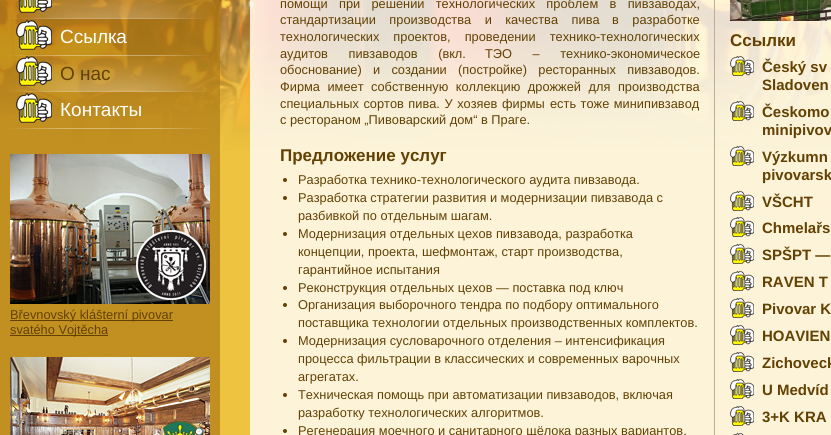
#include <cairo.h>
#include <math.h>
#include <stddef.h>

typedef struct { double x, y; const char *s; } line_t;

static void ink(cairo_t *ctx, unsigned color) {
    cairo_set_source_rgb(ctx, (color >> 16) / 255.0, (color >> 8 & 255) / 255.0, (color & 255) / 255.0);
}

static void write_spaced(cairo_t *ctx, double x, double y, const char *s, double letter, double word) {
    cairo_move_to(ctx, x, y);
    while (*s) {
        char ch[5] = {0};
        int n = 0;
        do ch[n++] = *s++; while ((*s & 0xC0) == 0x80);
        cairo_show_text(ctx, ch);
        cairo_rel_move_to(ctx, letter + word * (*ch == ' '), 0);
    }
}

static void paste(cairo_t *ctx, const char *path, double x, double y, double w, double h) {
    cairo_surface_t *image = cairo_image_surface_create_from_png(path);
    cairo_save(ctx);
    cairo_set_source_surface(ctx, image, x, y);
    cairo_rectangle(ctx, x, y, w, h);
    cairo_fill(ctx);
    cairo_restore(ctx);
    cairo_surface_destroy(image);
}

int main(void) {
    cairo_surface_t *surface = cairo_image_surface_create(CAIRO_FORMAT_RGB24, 831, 435);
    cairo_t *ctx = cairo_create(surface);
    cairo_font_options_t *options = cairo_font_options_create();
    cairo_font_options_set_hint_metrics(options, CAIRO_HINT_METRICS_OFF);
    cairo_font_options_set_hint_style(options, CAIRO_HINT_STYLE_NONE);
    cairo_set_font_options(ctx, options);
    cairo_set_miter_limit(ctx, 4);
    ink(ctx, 0xEEC33F);
    cairo_paint(ctx);
    paste(ctx, "media/1.png", 0, 0, 831, 150);
    paste(ctx, "media/2.png", 0, 0, 831, 435);
    paste(ctx, "media/3.png", 8, 0, 203, 19);
    paste(ctx, "media/4.png", 8, 20, 203, 36);
    cairo_select_font_face(ctx, "Liberation Sans", CAIRO_FONT_SLANT_NORMAL, CAIRO_FONT_WEIGHT_NORMAL);
    cairo_set_font_size(ctx, 19);
    ink(ctx, 0xFFFFFF);
    cairo_move_to(ctx, 60, 43);
    cairo_show_text(ctx, "Cсылка");
    paste(ctx, "media/5.png", 8, 56, 203, 36);
    ink(ctx, 0x624102);
    cairo_move_to(ctx, 60, 80);
    cairo_show_text(ctx, "O нас");
    paste(ctx, "media/6.png", 8, 93, 203, 36);
    ink(ctx, 0xFFFFFF);
    cairo_move_to(ctx, 60, 116);
    cairo_show_text(ctx, "Контакты");
    paste(ctx, "media/7.png", 10, 154, 200, 150);
    ink(ctx, 0x624102);
    cairo_rectangle(ctx, 10, 320, 163, 1);
    cairo_fill(ctx);
    cairo_set_font_size(ctx, 12.8);
    cairo_move_to(ctx, 10, 319);
    cairo_show_text(ctx, "Břevnovský klášterní pivovar");
    cairo_rectangle(ctx, 10, 335, 98, 1);
    cairo_fill(ctx);
    cairo_move_to(ctx, 10, 334);
    cairo_show_text(ctx, "svatého Vojtěcha");
    paste(ctx, "media/8.png", 10, 357, 200, 78);
    write_spaced(ctx, 280, 8, "помощи при решении технологических проблем в пивзаводах,", 0, 7.75);
    write_spaced(ctx, 280, 24, "стандартизации производства и качества пива", 0, 10);
    write_spaced(ctx, 612, 24, "в разработке", 0, 10);
    write_spaced(ctx, 280, 41, "технологических проектов, проведении технико-технологических", 0, 10.5);
    write_spaced(ctx, 280, 58, "аудитов пивзаводов (вкл.", 0, 17);
    write_spaced(ctx, 485, 58, "ТЭО – технико-экономическое", 0, 17);
    write_spaced(ctx, 280, 74, "обоснование) и создании (постройке) ресторанных пивзаводов.", 0, 7.75);
    write_spaced(ctx, 280, 91, "Фирма имеет собственную коллекцию дрожжей для производства", 0, 4);
    write_spaced(ctx, 280, 108, "специальных сортов пива. У хозяев фирмы", 0, 1);
    write_spaced(ctx, 550, 108, "есть тоже минипивзавод", 0, 1);
    cairo_move_to(ctx, 280, 124);
    cairo_show_text(ctx, "с рестораном „Пивоварский дом“ в Праге.");
    cairo_select_font_face(ctx, "Liberation Sans", CAIRO_FONT_SLANT_NORMAL, CAIRO_FONT_WEIGHT_BOLD);
    cairo_set_font_size(ctx, 17);
    cairo_move_to(ctx, 280, 161);
    cairo_show_text(ctx, "Предложение услуг");
    cairo_new_path(ctx);
    cairo_arc(ctx, 285, 180, 2, 0, 2 * M_PI);
    cairo_fill(ctx);
    cairo_select_font_face(ctx, "Liberation Sans", CAIRO_FONT_SLANT_NORMAL, CAIRO_FONT_WEIGHT_NORMAL);
    cairo_set_font_size(ctx, 12.8);
    cairo_move_to(ctx, 298, 184);
    cairo_show_text(ctx, "Разработка технико-технологического аудита пивзавода.");
    cairo_new_path(ctx);
    cairo_arc(ctx, 285, 198, 2, 0, 2 * M_PI);
    cairo_fill(ctx);
    cairo_move_to(ctx, 298, 202);
    cairo_show_text(ctx, "Разработка стратегии развития и модернизации пивзавода с");
    cairo_move_to(ctx, 298, 220);
    cairo_show_text(ctx, "разбивкой по отдельным шагам.");
    cairo_new_path(ctx);
    cairo_arc(ctx, 285, 234, 2, 0, 2 * M_PI);
    cairo_fill(ctx);
    {
        static const line_t items[] = {
            {298, 238, "Модернизация отдельных цехов пивзавода, разработка"},
            {298, 256, "концепции, проекта, шефмонтаж, старт производства,"},
            {298, 274, "гарантийное испытания"},
        };
        for (size_t i = 0; i < sizeof items / sizeof *items; i++) {
            cairo_move_to(ctx, items[i].x, items[i].y);
            cairo_show_text(ctx, items[i].s);
        }
    }
    cairo_new_path(ctx);
    cairo_arc(ctx, 285, 288, 2, 0, 2 * M_PI);
    cairo_fill(ctx);
    cairo_move_to(ctx, 298, 292);
    cairo_show_text(ctx, "Реконструкция отдельных цехов — поставка под ключ");
    cairo_new_path(ctx);
    cairo_arc(ctx, 285, 305, 2, 0, 2 * M_PI);
    cairo_fill(ctx);
    cairo_move_to(ctx, 298, 309);
    cairo_show_text(ctx, "Организация выборочного тендра по подбору оптимального");
    cairo_move_to(ctx, 298, 327);
    cairo_show_text(ctx, "поставщика технологии отдельных производственных комплектов.");
    cairo_new_path(ctx);
    cairo_arc(ctx, 285, 341, 2, 0, 2 * M_PI);
    cairo_fill(ctx);
    {
        static const line_t items[] = {
            {298, 345, "Модернизация сусловарочного отделения – интенсификация"},
            {298, 363, "процесса фильтрации в классических и современных варочных"},
            {298, 381, "агрегатах."},
        };
        for (size_t i = 0; i < sizeof items / sizeof *items; i++) {
            cairo_move_to(ctx, items[i].x, items[i].y);
            cairo_show_text(ctx, items[i].s);
        }
    }
    cairo_new_path(ctx);
    cairo_arc(ctx, 285, 395, 2, 0, 2 * M_PI);
    cairo_fill(ctx);
    cairo_move_to(ctx, 298, 399);
    cairo_show_text(ctx, "Техническая помощь при автоматизации пивзаводов, включая");
    cairo_move_to(ctx, 298, 417);
    cairo_show_text(ctx, "разработку технологических алгоритмов.");
    cairo_new_path(ctx);
    cairo_arc(ctx, 285, 431, 2, 0, 2 * M_PI);
    cairo_fill(ctx);
    cairo_move_to(ctx, 298, 435);
    cairo_show_text(ctx, "Регенерация моечного и санитарного щёлока разных вариантов,");
    paste(ctx, "media/9.png", 730, 0, 101, 21);
    cairo_select_font_face(ctx, "Liberation Sans", CAIRO_FONT_SLANT_NORMAL, CAIRO_FONT_WEIGHT_BOLD);
    cairo_set_font_size(ctx, 17);
    cairo_move_to(ctx, 730, 46);
    cairo_show_text(ctx, "Ссылки");
    paste(ctx, "media/10.png", 730, 56, 24, 20);
    cairo_set_font_size(ctx, 15);
    cairo_move_to(ctx, 762, 72);
    cairo_show_text(ctx, "Český sv");
    cairo_move_to(ctx, 762, 90);
    cairo_show_text(ctx, "Sladoven");
    paste(ctx, "media/11.png", 730, 101, 24, 20);
    cairo_move_to(ctx, 762, 117);
    cairo_show_text(ctx, "Českomo");
    cairo_move_to(ctx, 762, 135);
    cairo_show_text(ctx, "minipivov");
    paste(ctx, "media/12.png", 730, 146, 24, 20);
    cairo_move_to(ctx, 762, 162);
    cairo_show_text(ctx, "Výzkumn");
    cairo_move_to(ctx, 762, 180);
    cairo_show_text(ctx, "pivovarsk");
    paste(ctx, "media/13.png", 730, 191, 24, 20);
    cairo_move_to(ctx, 762, 207);
    cairo_show_text(ctx, "VŠCHT");
    paste(ctx, "media/13.png", 730, 217, 24, 20);
    cairo_move_to(ctx, 762, 233);
    cairo_show_text(ctx, "Chmelařs");
    paste(ctx, "media/13.png", 730, 244, 24, 20);
    cairo_move_to(ctx, 762, 260);
    cairo_show_text(ctx, "SPŠPT —");
    paste(ctx, "media/13.png", 730, 271, 24, 20);
    cairo_move_to(ctx, 762, 287);
    cairo_show_text(ctx, "RAVEN T");
    paste(ctx, "media/13.png", 730, 298, 24, 20);
    cairo_move_to(ctx, 762, 314);
    cairo_show_text(ctx, "Pivovar K");
    paste(ctx, "media/13.png", 730, 325, 24, 20);
    cairo_move_to(ctx, 762, 341);
    cairo_show_text(ctx, "HOAVIEN");
    paste(ctx, "media/13.png", 730, 352, 24, 20);
    cairo_move_to(ctx, 762, 368);
    cairo_show_text(ctx, "Zichoveck");
    paste(ctx, "media/13.png", 730, 379, 24, 20);
    cairo_move_to(ctx, 762, 395);
    cairo_show_text(ctx, "U Medvíd");
    paste(ctx, "media/13.png", 730, 406, 24, 20);
    cairo_move_to(ctx, 762, 422);
    cairo_show_text(ctx, "3+K KRA");
    paste(ctx, "media/14.png", 733, 433, 11, 2);
    cairo_surface_write_to_png(surface, "image.png");
    cairo_font_options_destroy(options);
    cairo_destroy(ctx);
    cairo_surface_destroy(surface);
    return 0;
}
